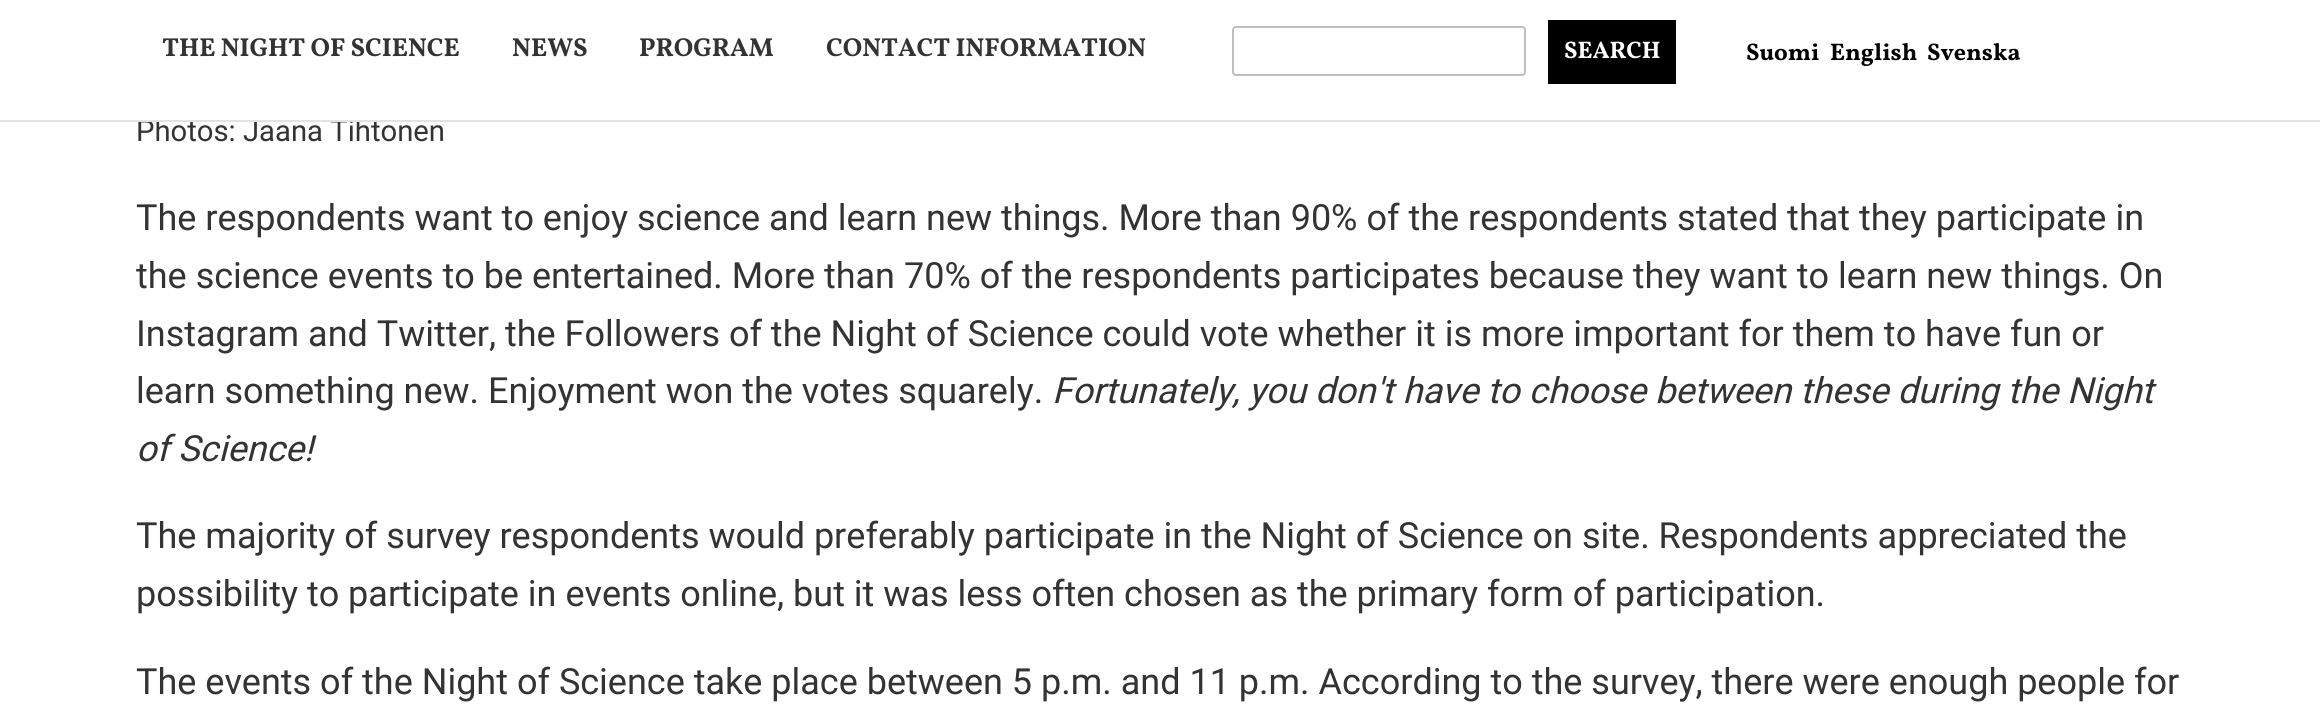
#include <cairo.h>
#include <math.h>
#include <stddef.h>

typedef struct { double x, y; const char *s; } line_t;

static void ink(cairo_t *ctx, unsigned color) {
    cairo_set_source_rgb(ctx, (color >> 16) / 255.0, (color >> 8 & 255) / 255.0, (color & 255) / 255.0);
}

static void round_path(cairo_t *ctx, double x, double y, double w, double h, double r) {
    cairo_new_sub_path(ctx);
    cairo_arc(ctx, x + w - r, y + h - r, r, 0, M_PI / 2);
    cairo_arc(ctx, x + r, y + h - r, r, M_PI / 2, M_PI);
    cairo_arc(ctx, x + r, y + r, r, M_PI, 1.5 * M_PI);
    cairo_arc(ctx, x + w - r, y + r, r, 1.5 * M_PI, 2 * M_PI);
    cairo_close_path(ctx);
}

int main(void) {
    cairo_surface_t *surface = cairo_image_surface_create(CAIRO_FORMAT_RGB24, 2320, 728);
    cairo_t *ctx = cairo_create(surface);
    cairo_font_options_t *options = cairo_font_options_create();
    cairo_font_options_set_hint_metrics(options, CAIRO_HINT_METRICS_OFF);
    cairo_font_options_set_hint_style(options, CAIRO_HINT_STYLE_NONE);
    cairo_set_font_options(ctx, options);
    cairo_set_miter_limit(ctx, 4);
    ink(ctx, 0xFFFFFF);
    cairo_paint(ctx);
    cairo_select_font_face(ctx, "Roboto", CAIRO_FONT_SLANT_NORMAL, CAIRO_FONT_WEIGHT_NORMAL);
    cairo_set_font_size(ctx, 29.25);
    ink(ctx, 0x333333);
    cairo_move_to(ctx, 136, 141);
    cairo_show_text(ctx, "Photos: Jaana Tihtonen");
    ink(ctx, 0xFFFFFF);
    cairo_rectangle(ctx, 156, 119, 205, 1);
    cairo_fill(ctx);
    ink(ctx, 0xE2E2E2);
    cairo_rectangle(ctx, 0, 120, 2320, 2);
    cairo_fill(ctx);
    cairo_select_font_face(ctx, "Vollkorn", CAIRO_FONT_SLANT_NORMAL, CAIRO_FONT_WEIGHT_BOLD);
    cairo_set_font_size(ctx, 26);
    ink(ctx, 0x333333);
    {
        static const line_t items[] = {
            {162, 56, "THE NIGHT OF SCIENCE"},
            {512, 56, "NEWS"},
            {639, 56, "PROGRAM"},
            {826, 56, "CONTACT INFORMATION"},
        };
        for (size_t i = 0; i < sizeof items / sizeof *items; i++) {
            cairo_move_to(ctx, items[i].x, items[i].y);
            cairo_show_text(ctx, items[i].s);
        }
    }
    round_path(ctx, 1233, 27, 292, 48, 3);
    ink(ctx, 0xBEBEBE);
    cairo_stroke(ctx);
    ink(ctx, 0x000000);
    cairo_rectangle(ctx, 1548, 20, 128, 64);
    cairo_fill(ctx);
    cairo_set_font_size(ctx, 24);
    ink(ctx, 0xFFFFFF);
    cairo_move_to(ctx, 1564, 58);
    cairo_show_text(ctx, "SEARCH");
    ink(ctx, 0x000000);
    {
        static const line_t items[] = {
            {1746, 60, "Suomi"},
            {1830, 60, "English"},
            {1927, 60, "Svenska"},
        };
        for (size_t i = 0; i < sizeof items / sizeof *items; i++) {
            cairo_move_to(ctx, items[i].x, items[i].y);
            cairo_show_text(ctx, items[i].s);
        }
    }
    cairo_select_font_face(ctx, "Roboto", CAIRO_FONT_SLANT_NORMAL, CAIRO_FONT_WEIGHT_NORMAL);
    cairo_set_font_size(ctx, 36);
    ink(ctx, 0x333333);
    {
        static const line_t items[] = {
            {136, 230, "The respondents want to enjoy science and learn new things. More than 90% of the respondents stated that they participate in"},
            {136, 288, "the science events to be entertained. More than 70% of the respondents participates because they want to learn new things. On"},
            {136, 346, "Instagram and Twitter, the Followers of the Night of Science could vote whether it is more important for them to have fun or"},
            {136, 403, "learn something new. Enjoyment won the votes squarely."},
        };
        for (size_t i = 0; i < sizeof items / sizeof *items; i++) {
            cairo_move_to(ctx, items[i].x, items[i].y);
            cairo_show_text(ctx, items[i].s);
        }
    }
    cairo_select_font_face(ctx, "Roboto", CAIRO_FONT_SLANT_ITALIC, CAIRO_FONT_WEIGHT_NORMAL);
    cairo_move_to(ctx, 1052, 403);
    cairo_show_text(ctx, "Fortunately, you don't have to choose between these during the Night");
    cairo_move_to(ctx, 136, 461);
    cairo_show_text(ctx, "of Science!");
    cairo_select_font_face(ctx, "Roboto", CAIRO_FONT_SLANT_NORMAL, CAIRO_FONT_WEIGHT_NORMAL);
    {
        static const line_t items[] = {
            {136, 548, "The majority of survey respondents would preferably participate in the Night of Science on site. Respondents appreciated the"},
            {136, 606, "possibility to participate in events online, but it was less often chosen as the primary form of participation."},
            {136, 694, "The events of the Night of Science take place between 5 p.m. and 11 p.m. According to the survey, there were enough people for"},
        };
        for (size_t i = 0; i < sizeof items / sizeof *items; i++) {
            cairo_move_to(ctx, items[i].x, items[i].y);
            cairo_show_text(ctx, items[i].s);
        }
    }
    cairo_surface_write_to_png(surface, "image.png");
    cairo_font_options_destroy(options);
    cairo_destroy(ctx);
    cairo_surface_destroy(surface);
    return 0;
}
